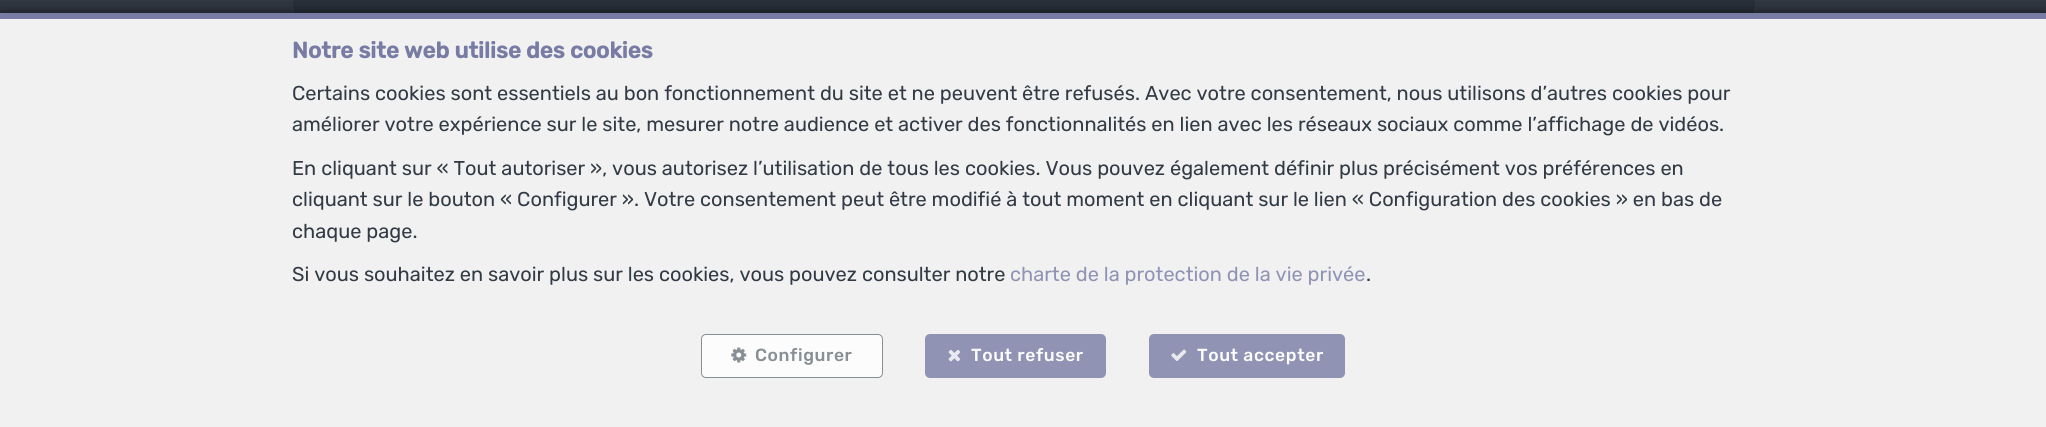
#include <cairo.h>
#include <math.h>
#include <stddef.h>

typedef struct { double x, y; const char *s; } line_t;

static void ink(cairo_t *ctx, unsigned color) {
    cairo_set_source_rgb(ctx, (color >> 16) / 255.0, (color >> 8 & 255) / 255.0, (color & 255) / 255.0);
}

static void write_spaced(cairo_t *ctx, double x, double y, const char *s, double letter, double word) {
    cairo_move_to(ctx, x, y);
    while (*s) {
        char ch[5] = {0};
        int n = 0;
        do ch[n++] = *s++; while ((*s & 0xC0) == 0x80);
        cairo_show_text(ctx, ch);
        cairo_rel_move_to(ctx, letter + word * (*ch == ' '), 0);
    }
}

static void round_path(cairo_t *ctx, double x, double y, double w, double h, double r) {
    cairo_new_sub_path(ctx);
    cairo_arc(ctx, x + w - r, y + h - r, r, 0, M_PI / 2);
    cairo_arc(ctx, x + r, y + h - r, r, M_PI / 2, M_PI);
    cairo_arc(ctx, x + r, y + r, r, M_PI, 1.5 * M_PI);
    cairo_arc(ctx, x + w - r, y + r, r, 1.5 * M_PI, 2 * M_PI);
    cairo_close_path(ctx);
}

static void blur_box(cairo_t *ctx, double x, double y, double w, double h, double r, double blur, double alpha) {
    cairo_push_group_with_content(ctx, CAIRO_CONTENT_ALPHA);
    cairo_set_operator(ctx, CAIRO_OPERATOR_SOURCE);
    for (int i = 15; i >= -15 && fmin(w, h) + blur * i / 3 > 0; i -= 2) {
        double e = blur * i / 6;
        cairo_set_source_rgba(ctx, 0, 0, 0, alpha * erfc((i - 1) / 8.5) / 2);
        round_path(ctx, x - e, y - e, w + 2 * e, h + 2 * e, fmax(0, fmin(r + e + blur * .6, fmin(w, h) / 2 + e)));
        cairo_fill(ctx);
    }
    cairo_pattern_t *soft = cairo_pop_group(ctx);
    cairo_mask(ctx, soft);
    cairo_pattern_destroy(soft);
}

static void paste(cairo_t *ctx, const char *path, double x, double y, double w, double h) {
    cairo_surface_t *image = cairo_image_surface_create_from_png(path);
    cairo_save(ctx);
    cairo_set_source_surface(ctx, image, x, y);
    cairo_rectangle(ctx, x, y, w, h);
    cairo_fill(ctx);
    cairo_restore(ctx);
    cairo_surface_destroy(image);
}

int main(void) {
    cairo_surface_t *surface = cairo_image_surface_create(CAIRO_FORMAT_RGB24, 2046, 427);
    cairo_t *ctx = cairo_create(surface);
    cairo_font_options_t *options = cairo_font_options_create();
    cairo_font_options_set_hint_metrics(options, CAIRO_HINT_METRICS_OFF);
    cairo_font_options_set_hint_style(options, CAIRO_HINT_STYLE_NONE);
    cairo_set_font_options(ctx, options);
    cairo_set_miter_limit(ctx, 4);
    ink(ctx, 0x323A45);
    cairo_paint(ctx);
    ink(ctx, 0x2A323C);
    cairo_new_path(ctx);
    cairo_move_to(ctx, 293, 0);
    cairo_line_to(ctx, 1755, 0);
    cairo_curve_to(ctx, 1755, 24.5, 1735.5, 44, 1711, 44);
    cairo_line_to(ctx, 337, 44);
    cairo_curve_to(ctx, 312.5, 44, 293, 24.5, 293, 0);
    cairo_close_path(ctx);
    cairo_fill(ctx);
    ink(ctx, 0x000000);
    blur_box(ctx, 0, 20, 2046, 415, 0, 12.5, 0.9);
    blur_box(ctx, 0, 18, 2046, 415, 0, 5, 0.9);
    ink(ctx, 0xF1F1F1);
    cairo_rectangle(ctx, 0, 19, 2046, 408);
    cairo_fill(ctx);
    ink(ctx, 0x787BA3);
    cairo_rectangle(ctx, 0, 13, 2046, 6);
    cairo_fill(ctx);
    cairo_select_font_face(ctx, "Rubik", CAIRO_FONT_SLANT_NORMAL, CAIRO_FONT_WEIGHT_BOLD);
    cairo_set_font_size(ctx, 22.5);
    cairo_move_to(ctx, 292, 58);
    cairo_show_text(ctx, "Notre site web utilise des cookies");
    cairo_select_font_face(ctx, "Rubik", CAIRO_FONT_SLANT_NORMAL, CAIRO_FONT_WEIGHT_NORMAL);
    cairo_set_font_size(ctx, 20);
    ink(ctx, 0x323A45);
    {
        static const line_t items[] = {
            {292, 100, "Certains cookies sont essentiels au bon fonctionnement du site et ne peuvent être refusés. Avec votre consentement, nous utilisons d’autres cookies pour"},
            {292, 131, "améliorer votre expérience sur le site, mesurer notre audience et activer des fonctionnalités en lien avec les réseaux sociaux comme l’affichage de vidéos."},
            {292, 175, "En cliquant sur « Tout autoriser », vous autorisez l’utilisation de tous les cookies. Vous pouvez également définir plus précisément vos préférences en"},
            {292, 206, "cliquant sur le bouton « Configurer ». Votre consentement peut être modifié à tout moment en cliquant sur le lien « Configuration des cookies » en bas de"},
            {292, 238, "chaque page."},
            {292, 281, "Si vous souhaitez en savoir plus sur les cookies, vous pouvez consulter notre"},
        };
        for (size_t i = 0; i < sizeof items / sizeof *items; i++) {
            cairo_move_to(ctx, items[i].x, items[i].y);
            cairo_show_text(ctx, items[i].s);
        }
    }
    ink(ctx, 0x9093B3);
    cairo_move_to(ctx, 1010, 281);
    cairo_show_text(ctx, "charte de la protection de la vie privée");
    ink(ctx, 0x323A45);
    cairo_move_to(ctx, 1366, 281);
    cairo_show_text(ctx, ".");
    ink(ctx, 0xFCFCFC);
    round_path(ctx, 701.5, 334.5, 181, 43, 4.5);
    cairo_fill_preserve(ctx);
    ink(ctx, 0x878E94);
    cairo_set_line_width(ctx, 1);
    cairo_stroke(ctx);
    paste(ctx, "media/1.png", 731, 347, 16, 16);
    cairo_select_font_face(ctx, "Rubik Medium", CAIRO_FONT_SLANT_NORMAL, CAIRO_FONT_WEIGHT_NORMAL);
    cairo_set_font_size(ctx, 17.5);
    write_spaced(ctx, 755, 361, "Configurer", 0.6, 0);
    ink(ctx, 0x9093B3);
    round_path(ctx, 925, 334, 181, 44, 5);
    cairo_fill(ctx);
    paste(ctx, "media/2.png", 948, 349, 13, 13);
    ink(ctx, 0xFCFCFC);
    write_spaced(ctx, 971, 361, "Tout refuser", 0.6, 0);
    ink(ctx, 0x9093B3);
    round_path(ctx, 1149, 334, 196, 44, 5);
    cairo_fill(ctx);
    paste(ctx, "media/3.png", 1171, 349, 16, 12);
    ink(ctx, 0xFCFCFC);
    write_spaced(ctx, 1197, 361, "Tout accepter", 0.6, 0);
    cairo_surface_write_to_png(surface, "image.png");
    cairo_font_options_destroy(options);
    cairo_destroy(ctx);
    cairo_surface_destroy(surface);
    return 0;
}
